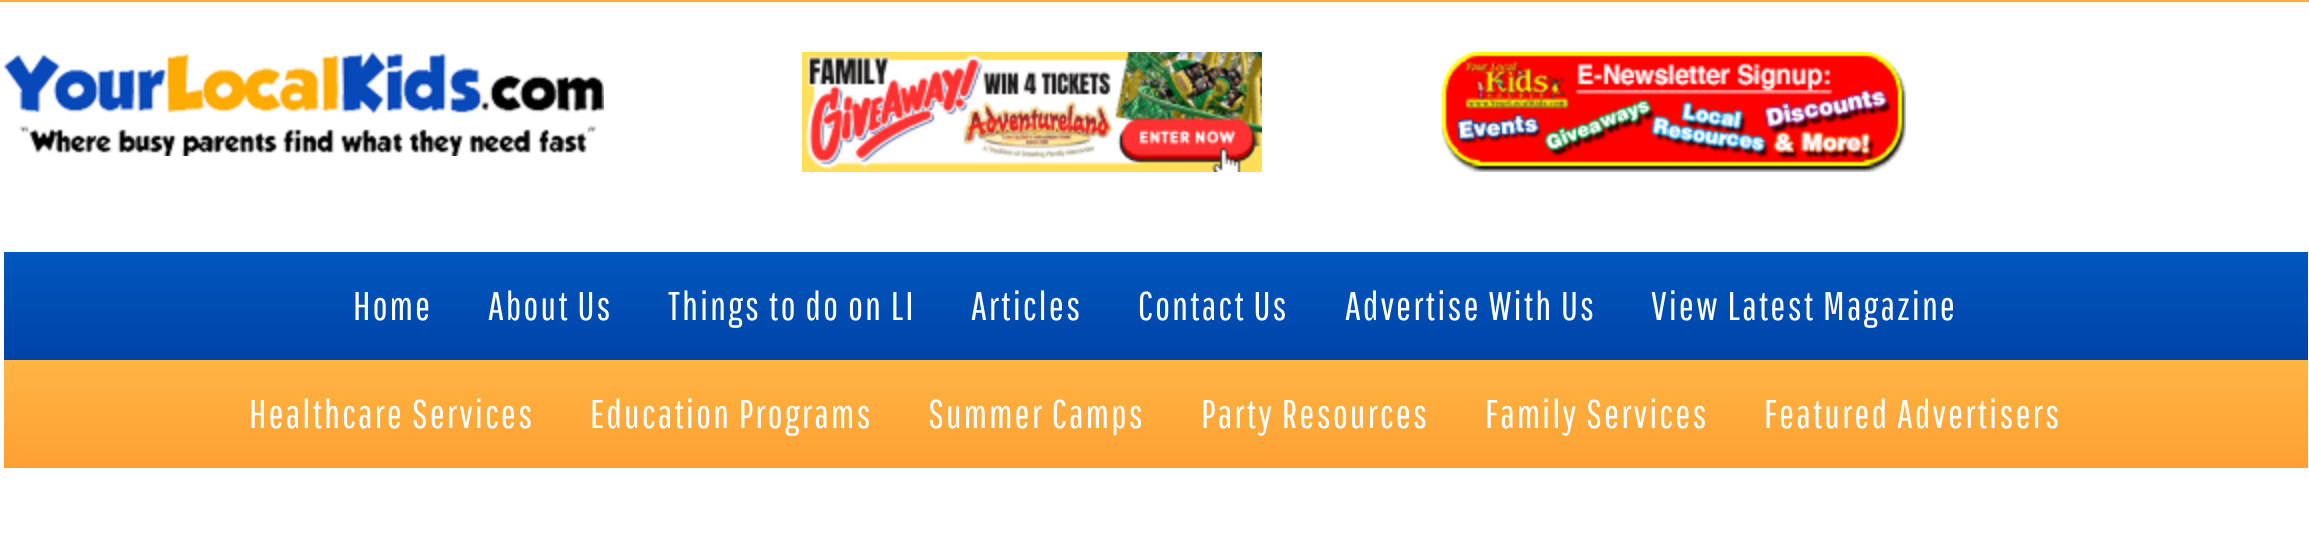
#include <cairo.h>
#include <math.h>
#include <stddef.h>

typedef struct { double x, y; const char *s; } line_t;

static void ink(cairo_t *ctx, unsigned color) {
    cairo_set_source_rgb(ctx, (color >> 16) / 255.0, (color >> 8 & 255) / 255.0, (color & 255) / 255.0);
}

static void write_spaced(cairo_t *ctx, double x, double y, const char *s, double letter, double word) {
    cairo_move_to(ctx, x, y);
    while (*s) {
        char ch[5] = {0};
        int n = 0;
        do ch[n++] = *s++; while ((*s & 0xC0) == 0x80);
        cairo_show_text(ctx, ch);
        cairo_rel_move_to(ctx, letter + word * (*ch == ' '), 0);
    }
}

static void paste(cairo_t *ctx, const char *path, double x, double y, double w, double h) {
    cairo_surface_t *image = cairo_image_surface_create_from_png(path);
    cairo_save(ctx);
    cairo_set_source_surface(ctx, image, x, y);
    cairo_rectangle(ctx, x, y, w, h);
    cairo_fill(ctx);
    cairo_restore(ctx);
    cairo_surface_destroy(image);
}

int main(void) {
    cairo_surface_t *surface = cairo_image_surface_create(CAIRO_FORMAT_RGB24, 2309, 535);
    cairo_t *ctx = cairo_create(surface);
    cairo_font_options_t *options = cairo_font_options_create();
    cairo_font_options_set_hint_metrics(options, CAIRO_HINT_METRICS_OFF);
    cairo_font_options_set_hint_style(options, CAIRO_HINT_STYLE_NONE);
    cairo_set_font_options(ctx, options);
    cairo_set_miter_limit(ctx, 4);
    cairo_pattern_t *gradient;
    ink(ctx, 0xFFFFFF);
    cairo_paint(ctx);
    ink(ctx, 0xFFAA3B);
    cairo_rectangle(ctx, 0, 0, 2309, 2);
    cairo_fill(ctx);
    paste(ctx, "media/1.png", 4, 52, 600, 104);
    paste(ctx, "media/2.png", 802, 52, 460, 120);
    paste(ctx, "media/3.png", 1441, 52, 465, 120);
    gradient = cairo_pattern_create_linear(1156, 252, 1156, 360);
    cairo_pattern_add_color_stop_rgba(gradient, 0, 0, 0.341, 0.741, 1);
    cairo_pattern_add_color_stop_rgba(gradient, 1, 0, 0.263, 0.663, 1);
    cairo_set_source(ctx, gradient);
    cairo_pattern_destroy(gradient);
    cairo_rectangle(ctx, 4, 252, 2304, 108);
    cairo_fill(ctx);
    cairo_select_font_face(ctx, "Pathway Gothic One", CAIRO_FONT_SLANT_NORMAL, CAIRO_FONT_WEIGHT_NORMAL);
    cairo_set_font_size(ctx, 40);
    ink(ctx, 0xFFFFFF);
    {
        static const line_t items[] = {
            {353, 320, "Home"},
            {488, 320, "About Us"},
            {668, 320, "Things to do on LI"},
            {971, 320, "Articles"},
            {1138, 320, "Contact Us"},
            {1345, 320, "Advertise With Us"},
            {1651, 320, "View Latest Magazine"},
        };
        for (size_t i = 0; i < sizeof items / sizeof *items; i++) {
            write_spaced(ctx, items[i].x, items[i].y, items[i].s, 2, 0);
        }
    }
    gradient = cairo_pattern_create_linear(1156, 360, 1156, 468);
    cairo_pattern_add_color_stop_rgba(gradient, 0, 1, 0.71, 0.263, 1);
    cairo_pattern_add_color_stop_rgba(gradient, 1, 1, 0.624, 0.204, 1);
    cairo_set_source(ctx, gradient);
    cairo_pattern_destroy(gradient);
    cairo_rectangle(ctx, 4, 360, 2304, 108);
    cairo_fill(ctx);
    ink(ctx, 0xFFFFFF);
    {
        static const line_t items[] = {
            {249, 428, "Healthcare Services"},
            {590, 428, "Education Programs"},
            {928, 428, "Summer Camps"},
            {1201, 428, "Party Resources"},
            {1485, 428, "Family Services"},
            {1764, 428, "Featured Advertisers"},
        };
        for (size_t i = 0; i < sizeof items / sizeof *items; i++) {
            write_spaced(ctx, items[i].x, items[i].y, items[i].s, 2, 0);
        }
    }
    cairo_surface_write_to_png(surface, "image.png");
    cairo_font_options_destroy(options);
    cairo_destroy(ctx);
    cairo_surface_destroy(surface);
    return 0;
}
